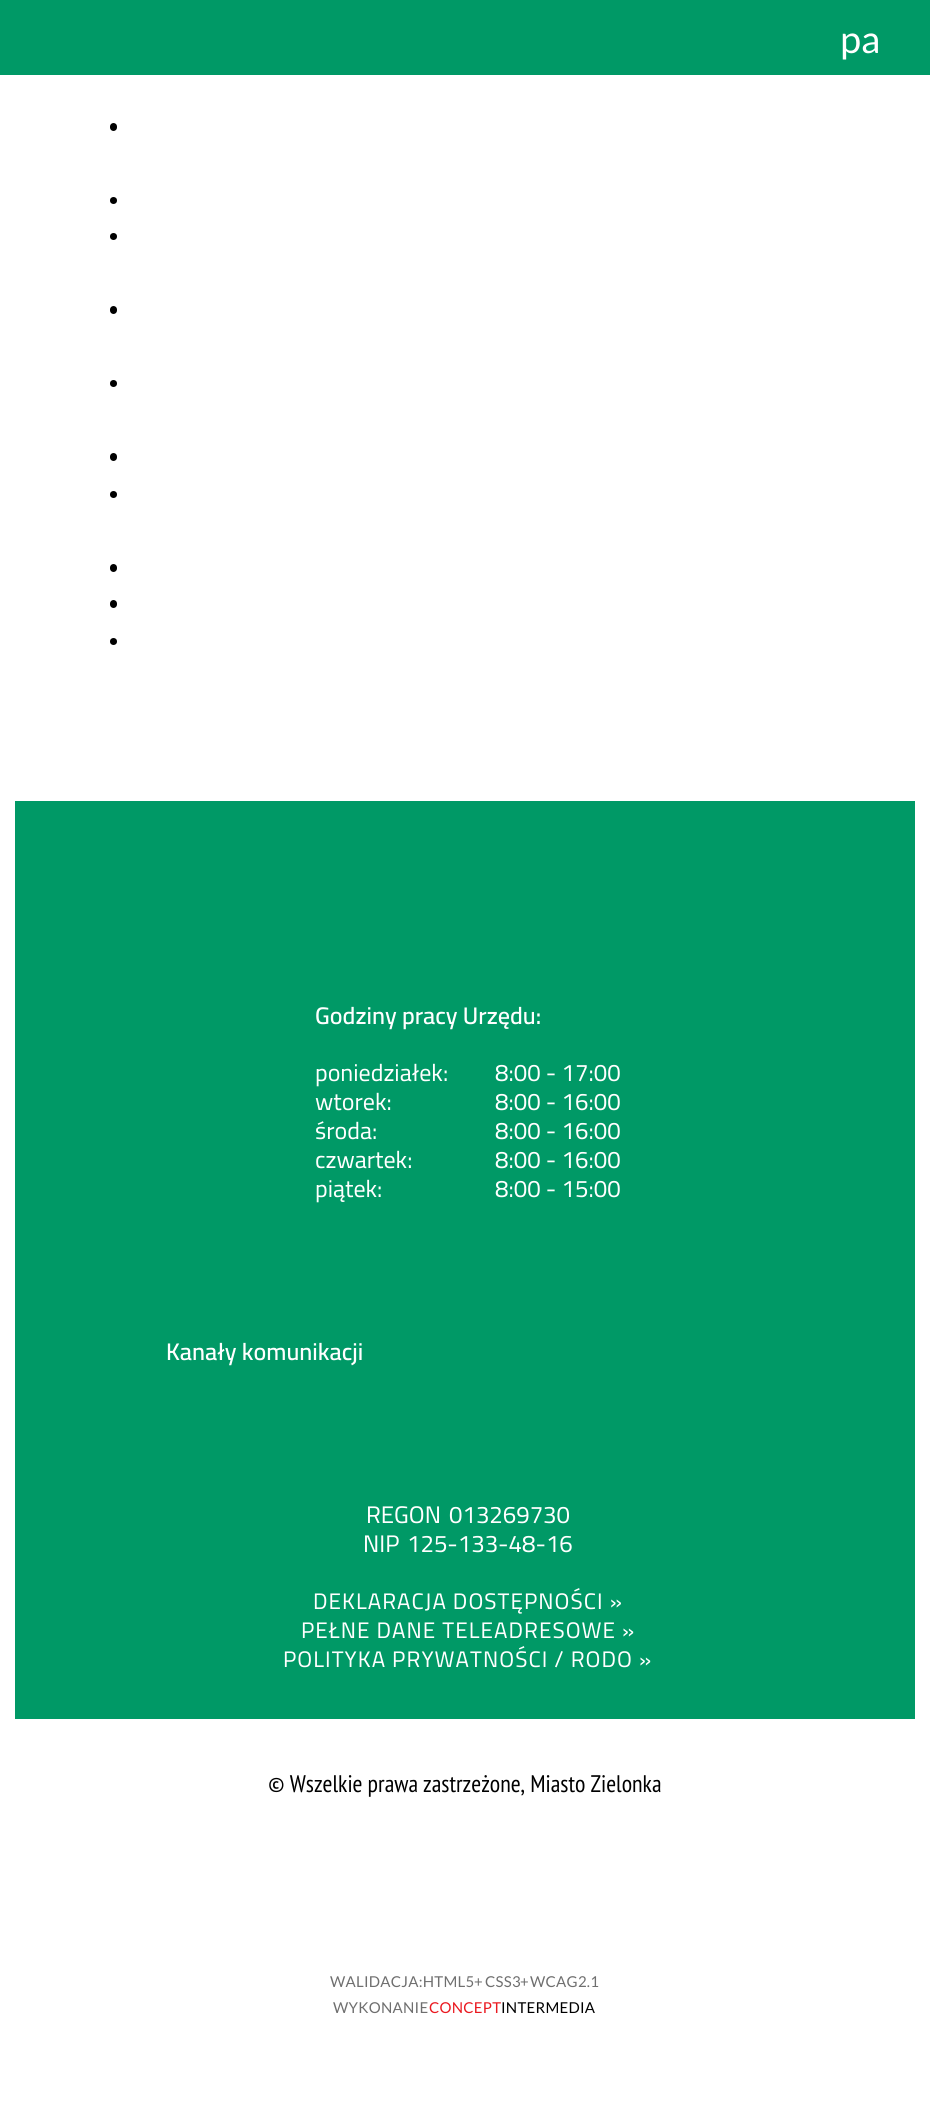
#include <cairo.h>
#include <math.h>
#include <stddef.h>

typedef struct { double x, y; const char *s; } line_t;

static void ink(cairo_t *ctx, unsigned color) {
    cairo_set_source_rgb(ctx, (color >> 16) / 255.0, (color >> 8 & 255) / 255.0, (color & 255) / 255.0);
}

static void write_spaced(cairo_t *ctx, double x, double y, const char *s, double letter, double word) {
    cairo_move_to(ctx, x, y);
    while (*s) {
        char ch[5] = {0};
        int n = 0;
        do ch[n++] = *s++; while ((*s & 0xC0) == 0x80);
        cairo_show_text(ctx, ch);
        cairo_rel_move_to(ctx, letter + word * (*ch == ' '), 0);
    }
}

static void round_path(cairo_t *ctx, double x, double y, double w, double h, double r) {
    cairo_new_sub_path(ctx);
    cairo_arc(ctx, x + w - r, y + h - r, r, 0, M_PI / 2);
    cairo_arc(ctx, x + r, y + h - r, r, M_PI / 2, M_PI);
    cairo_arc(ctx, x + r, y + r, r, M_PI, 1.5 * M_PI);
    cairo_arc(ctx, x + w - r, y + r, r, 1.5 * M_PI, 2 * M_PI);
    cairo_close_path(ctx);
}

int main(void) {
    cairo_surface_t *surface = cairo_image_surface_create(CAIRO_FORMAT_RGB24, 930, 2101);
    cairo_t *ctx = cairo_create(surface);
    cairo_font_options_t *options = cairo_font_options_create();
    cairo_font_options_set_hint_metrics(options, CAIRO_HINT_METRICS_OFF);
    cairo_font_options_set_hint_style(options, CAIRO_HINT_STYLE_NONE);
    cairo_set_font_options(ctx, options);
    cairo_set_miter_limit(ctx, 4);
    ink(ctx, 0xFFFFFF);
    cairo_paint(ctx);
    ink(ctx, 0x009966);
    cairo_rectangle(ctx, 0, 0, 930, 75);
    cairo_fill(ctx);
    cairo_select_font_face(ctx, "Lato", CAIRO_FONT_SLANT_NORMAL, CAIRO_FONT_WEIGHT_NORMAL);
    cairo_set_font_size(ctx, 38);
    ink(ctx, 0xFFFFFF);
    cairo_move_to(ctx, 840, 53);
    cairo_show_text(ctx, "pa");
    ink(ctx, 0x000000);
    round_path(ctx, 110, 123, 7, 8, 3.5);
    cairo_fill(ctx);
    cairo_arc(ctx, 113.5, 200.5, 3.5, 0, 2 * M_PI);
    cairo_fill(ctx);
    cairo_arc(ctx, 113.5, 236.5, 3.5, 0, 2 * M_PI);
    cairo_fill(ctx);
    round_path(ctx, 110, 306, 7, 8, 3.5);
    cairo_fill(ctx);
    cairo_arc(ctx, 113.5, 383.5, 3.5, 0, 2 * M_PI);
    cairo_fill(ctx);
    round_path(ctx, 110, 453, 7, 8, 3.5);
    cairo_fill(ctx);
    cairo_arc(ctx, 113.5, 494.5, 3.5, 0, 2 * M_PI);
    cairo_fill(ctx);
    round_path(ctx, 110, 564, 7, 8, 3.5);
    cairo_fill(ctx);
    round_path(ctx, 110, 600, 7, 8, 3.5);
    cairo_fill(ctx);
    cairo_arc(ctx, 113.5, 641.5, 3.5, 0, 2 * M_PI);
    cairo_fill(ctx);
    ink(ctx, 0x009966);
    cairo_rectangle(ctx, 15, 801, 900, 918);
    cairo_fill(ctx);
    cairo_select_font_face(ctx, "Cairo SemiBold", CAIRO_FONT_SLANT_NORMAL, CAIRO_FONT_WEIGHT_NORMAL);
    cairo_set_font_size(ctx, 24);
    ink(ctx, 0xFFFFFF);
    cairo_move_to(ctx, 315, 1024);
    cairo_show_text(ctx, "Godziny pracy Urzędu:");
    cairo_select_font_face(ctx, "Cairo", CAIRO_FONT_SLANT_NORMAL, CAIRO_FONT_WEIGHT_NORMAL);
    {
        static const line_t items[] = {
            {315, 1081, "poniedziałek:"},
            {495, 1081, "8:00 - 17:00"},
            {315, 1110, "wtorek:"},
            {495, 1110, "8:00 - 16:00"},
            {315, 1139, "środa:"},
            {495, 1139, "8:00 - 16:00"},
            {315, 1168, "czwartek:"},
            {495, 1168, "8:00 - 16:00"},
            {315, 1197, "piątek:"},
            {495, 1197, "8:00 - 15:00"},
        };
        for (size_t i = 0; i < sizeof items / sizeof *items; i++) {
            cairo_move_to(ctx, items[i].x, items[i].y);
            cairo_show_text(ctx, items[i].s);
        }
    }
    cairo_select_font_face(ctx, "Cairo SemiBold", CAIRO_FONT_SLANT_NORMAL, CAIRO_FONT_WEIGHT_NORMAL);
    cairo_move_to(ctx, 166, 1360);
    cairo_show_text(ctx, "Kanały komunikacji");
    cairo_select_font_face(ctx, "Cairo", CAIRO_FONT_SLANT_NORMAL, CAIRO_FONT_WEIGHT_NORMAL);
    {
        static const line_t items[] = {
            {366, 1523, "REGON"},
            {449, 1523, "013269730"},
            {363, 1552, "NIP"},
            {407, 1552, "125-133-48-16"},
        };
        for (size_t i = 0; i < sizeof items / sizeof *items; i++) {
            cairo_move_to(ctx, items[i].x, items[i].y);
            cairo_show_text(ctx, items[i].s);
        }
    }
    cairo_set_font_size(ctx, 22.5);
    {
        static const line_t items[] = {
            {313, 1609, "DEKLARACJA DOSTĘPNOŚCI »"},
            {301, 1638, "PEŁNE DANE TELEADRESOWE »"},
            {283, 1667, "POLITYKA PRYWATNOŚCI / RODO »"},
        };
        for (size_t i = 0; i < sizeof items / sizeof *items; i++) {
            write_spaced(ctx, items[i].x, items[i].y, items[i].s, 1.05, 0);
        }
    }
    cairo_select_font_face(ctx, "PT Sans Narrow", CAIRO_FONT_SLANT_NORMAL, CAIRO_FONT_WEIGHT_NORMAL);
    cairo_set_font_size(ctx, 24);
    ink(ctx, 0x000000);
    cairo_move_to(ctx, 268, 1792);
    cairo_show_text(ctx, "© Wszelkie prawa zastrzeżone, Miasto Zielonka");
    cairo_select_font_face(ctx, "Lato", CAIRO_FONT_SLANT_NORMAL, CAIRO_FONT_WEIGHT_NORMAL);
    cairo_set_font_size(ctx, 15);
    ink(ctx, 0x6F6F6F);
    {
        static const line_t items[] = {
            {330, 1987, "WALIDACJA:HTML5"},
            {474, 1987, "+"},
            {485, 1987, "CSS3"},
            {520, 1987, "+"},
        };
        for (size_t i = 0; i < sizeof items / sizeof *items; i++) {
            write_spaced(ctx, items[i].x, items[i].y, items[i].s, 0.25, 0);
        }
    }
    write_spaced(ctx, 530, 1987, "WCAG 2.1", 0.25, -3);
    write_spaced(ctx, 333, 2013, "WYKONANIE", 0.25, 0);
    ink(ctx, 0xEA1920);
    write_spaced(ctx, 429, 2013, "CONCEPT", 0.25, 0);
    ink(ctx, 0x000000);
    write_spaced(ctx, 501, 2013, "INTERMEDIA", 0.25, 0);
    cairo_surface_write_to_png(surface, "image.png");
    cairo_font_options_destroy(options);
    cairo_destroy(ctx);
    cairo_surface_destroy(surface);
    return 0;
}
